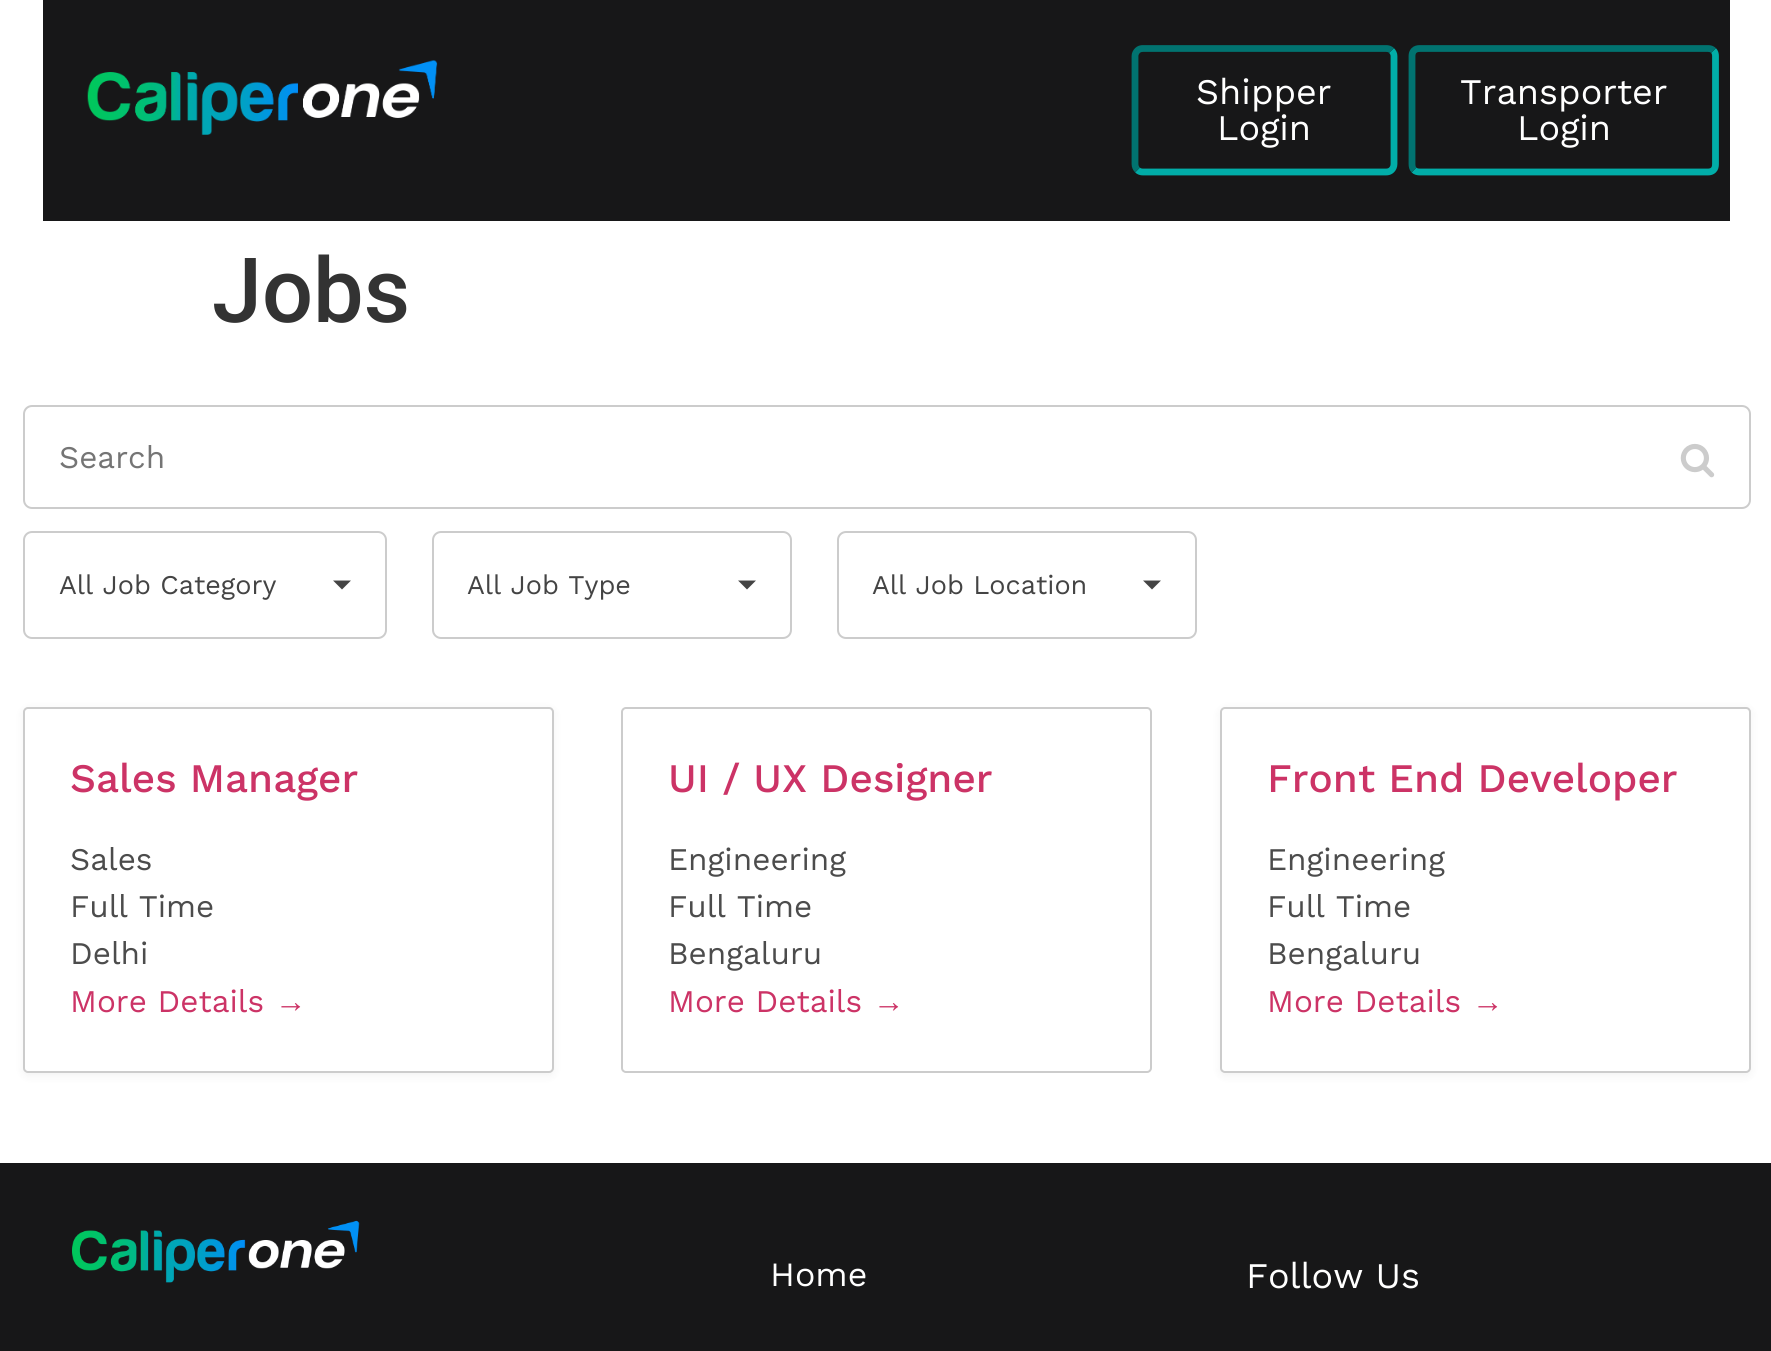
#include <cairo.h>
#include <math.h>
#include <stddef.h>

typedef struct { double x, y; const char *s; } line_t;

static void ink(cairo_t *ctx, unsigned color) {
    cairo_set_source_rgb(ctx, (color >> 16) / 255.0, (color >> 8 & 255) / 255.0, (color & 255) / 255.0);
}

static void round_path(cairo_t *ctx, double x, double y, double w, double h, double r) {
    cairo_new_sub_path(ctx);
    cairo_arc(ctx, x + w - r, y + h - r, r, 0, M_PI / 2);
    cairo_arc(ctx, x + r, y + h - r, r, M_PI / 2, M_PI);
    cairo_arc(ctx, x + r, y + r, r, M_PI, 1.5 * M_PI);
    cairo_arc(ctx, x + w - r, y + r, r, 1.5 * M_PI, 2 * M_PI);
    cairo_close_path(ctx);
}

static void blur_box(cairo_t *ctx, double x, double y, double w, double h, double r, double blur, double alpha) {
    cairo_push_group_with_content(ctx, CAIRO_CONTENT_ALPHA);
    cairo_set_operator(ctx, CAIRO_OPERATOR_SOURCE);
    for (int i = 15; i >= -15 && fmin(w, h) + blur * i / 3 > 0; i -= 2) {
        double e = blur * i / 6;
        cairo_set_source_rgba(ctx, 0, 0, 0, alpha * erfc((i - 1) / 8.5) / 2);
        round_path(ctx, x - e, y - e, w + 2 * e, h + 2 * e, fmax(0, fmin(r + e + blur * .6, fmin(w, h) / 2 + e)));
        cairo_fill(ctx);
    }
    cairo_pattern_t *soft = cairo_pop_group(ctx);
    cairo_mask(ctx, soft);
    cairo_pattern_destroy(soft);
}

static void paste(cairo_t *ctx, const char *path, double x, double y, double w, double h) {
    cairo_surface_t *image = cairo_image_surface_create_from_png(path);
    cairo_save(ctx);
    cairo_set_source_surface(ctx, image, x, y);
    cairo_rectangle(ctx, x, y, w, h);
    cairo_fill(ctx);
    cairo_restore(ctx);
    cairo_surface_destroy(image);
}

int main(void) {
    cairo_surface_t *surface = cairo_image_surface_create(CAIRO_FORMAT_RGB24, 1771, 1351);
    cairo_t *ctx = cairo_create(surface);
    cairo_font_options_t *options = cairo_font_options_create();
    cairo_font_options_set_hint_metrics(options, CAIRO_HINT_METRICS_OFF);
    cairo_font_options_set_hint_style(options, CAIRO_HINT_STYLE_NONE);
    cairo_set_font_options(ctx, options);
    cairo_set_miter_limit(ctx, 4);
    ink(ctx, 0xFFFFFF);
    cairo_paint(ctx);
    ink(ctx, 0x171718);
    cairo_rectangle(ctx, 43, 0, 1687, 221);
    cairo_fill(ctx);
    paste(ctx, "media/1.png", 87, 60, 351, 75);
    cairo_new_path(ctx);
    cairo_move_to(ctx, 1391.5, 50.5);
    cairo_curve_to(ctx, 1393, 52, 1394, 54, 1394, 56);
    cairo_line_to(ctx, 1394, 164);
    cairo_curve_to(ctx, 1394, 166.5, 1393, 168.5, 1391.5, 170);
    cairo_curve_to(ctx, 1390, 171.5, 1388, 172, 1386, 172);
    cairo_line_to(ctx, 1143, 172);
    cairo_curve_to(ctx, 1141, 172, 1139, 171.5, 1137.5, 170);
    ink(ctx, 0x01ADA8);
    cairo_set_line_width(ctx, 6.8);
    cairo_stroke(ctx);
    cairo_new_path(ctx);
    cairo_move_to(ctx, 1137.5, 170);
    cairo_curve_to(ctx, 1136, 168.5, 1135, 166.5, 1135, 164);
    cairo_line_to(ctx, 1135, 56);
    cairo_curve_to(ctx, 1135, 54, 1136, 52, 1137.5, 50.5);
    cairo_curve_to(ctx, 1139, 49, 1141, 48.5, 1143, 48.5);
    cairo_line_to(ctx, 1386, 48.5);
    cairo_curve_to(ctx, 1388, 48.5, 1390, 49, 1391.5, 50.5);
    ink(ctx, 0x017370);
    cairo_stroke(ctx);
    cairo_select_font_face(ctx, "Work Sans", CAIRO_FONT_SLANT_NORMAL, CAIRO_FONT_WEIGHT_NORMAL);
    cairo_set_font_size(ctx, 36);
    ink(ctx, 0xFFFFFF);
    cairo_move_to(ctx, 1196, 104);
    cairo_show_text(ctx, "Shipper");
    cairo_move_to(ctx, 1217, 140);
    cairo_show_text(ctx, "Login");
    cairo_new_path(ctx);
    cairo_move_to(ctx, 1713.5, 50.5);
    cairo_curve_to(ctx, 1715, 52, 1715.5, 54, 1715.5, 56);
    cairo_line_to(ctx, 1715.5, 164);
    cairo_curve_to(ctx, 1715.5, 166.5, 1715, 168.5, 1713.5, 170);
    cairo_curve_to(ctx, 1712, 171.5, 1710, 172, 1708, 172);
    cairo_line_to(ctx, 1420, 172);
    cairo_curve_to(ctx, 1417.5, 172, 1415.5, 171.5, 1414, 170);
    ink(ctx, 0x01ADA8);
    cairo_stroke(ctx);
    cairo_new_path(ctx);
    cairo_move_to(ctx, 1414, 170);
    cairo_curve_to(ctx, 1412.5, 168.5, 1412, 166.5, 1412, 164);
    cairo_line_to(ctx, 1412, 56);
    cairo_curve_to(ctx, 1412, 54, 1412.5, 52, 1414, 50.5);
    cairo_curve_to(ctx, 1415.5, 49, 1417.5, 48.5, 1420, 48.5);
    cairo_line_to(ctx, 1708, 48.5);
    cairo_curve_to(ctx, 1710, 48.5, 1712, 49, 1713.5, 50.5);
    ink(ctx, 0x017370);
    cairo_stroke(ctx);
    ink(ctx, 0xFFFFFF);
    cairo_move_to(ctx, 1460, 104);
    cairo_show_text(ctx, "Transporter");
    cairo_move_to(ctx, 1517, 140);
    cairo_show_text(ctx, "Login");
    cairo_select_font_face(ctx, "Roboto Medium", CAIRO_FONT_SLANT_NORMAL, CAIRO_FONT_WEIGHT_NORMAL);
    cairo_set_font_size(ctx, 90);
    ink(ctx, 0x333333);
    cairo_move_to(ctx, 212, 322);
    cairo_show_text(ctx, "Jobs");
    round_path(ctx, 24, 406, 1726, 102, 8);
    ink(ctx, 0xCCCCCC);
    cairo_set_line_width(ctx, 2);
    cairo_stroke(ctx);
    cairo_select_font_face(ctx, "Work Sans", CAIRO_FONT_SLANT_NORMAL, CAIRO_FONT_WEIGHT_NORMAL);
    cairo_set_font_size(ctx, 31.5);
    ink(ctx, 0x757575);
    cairo_move_to(ctx, 59, 468);
    cairo_show_text(ctx, "Search");
    paste(ctx, "media/2.png", 1680, 443, 35, 35);
    round_path(ctx, 24, 532, 362, 106, 8);
    ink(ctx, 0xCCCCCC);
    cairo_stroke(ctx);
    cairo_set_font_size(ctx, 27);
    ink(ctx, 0x444444);
    cairo_move_to(ctx, 59, 594);
    cairo_show_text(ctx, "All Job Category");
    cairo_new_path(ctx);
    cairo_move_to(ctx, 333, 580.5);
    cairo_line_to(ctx, 351, 580.5);
    cairo_line_to(ctx, 342, 589.5);
    cairo_close_path(ctx);
    cairo_fill(ctx);
    round_path(ctx, 433, 532, 358, 106, 8);
    ink(ctx, 0xCCCCCC);
    cairo_stroke(ctx);
    ink(ctx, 0x444444);
    cairo_move_to(ctx, 467, 594);
    cairo_show_text(ctx, "All Job Type");
    cairo_new_path(ctx);
    cairo_move_to(ctx, 738, 580.5);
    cairo_line_to(ctx, 756, 580.5);
    cairo_line_to(ctx, 747, 589.5);
    cairo_close_path(ctx);
    cairo_fill(ctx);
    round_path(ctx, 838, 532, 358, 106, 8);
    ink(ctx, 0xCCCCCC);
    cairo_stroke(ctx);
    ink(ctx, 0x444444);
    cairo_move_to(ctx, 872, 594);
    cairo_show_text(ctx, "All Job Location");
    cairo_new_path(ctx);
    cairo_move_to(ctx, 1143, 580.5);
    cairo_line_to(ctx, 1161, 580.5);
    cairo_line_to(ctx, 1152, 589.5);
    cairo_close_path(ctx);
    cairo_fill(ctx);
    ink(ctx, 0x000000);
    blur_box(ctx, 23, 709, 531, 367, 5, 4.5, 0.05);
    ink(ctx, 0xFFFFFF);
    round_path(ctx, 24, 708, 529, 364, 4);
    cairo_fill_preserve(ctx);
    ink(ctx, 0xCCCCCC);
    cairo_stroke(ctx);
    cairo_select_font_face(ctx, "Work Sans Medium", CAIRO_FONT_SLANT_NORMAL, CAIRO_FONT_WEIGHT_NORMAL);
    cairo_set_font_size(ctx, 40.5);
    ink(ctx, 0xCC3366);
    cairo_move_to(ctx, 70, 792);
    cairo_show_text(ctx, "Sales Manager");
    cairo_select_font_face(ctx, "Work Sans", CAIRO_FONT_SLANT_NORMAL, CAIRO_FONT_WEIGHT_NORMAL);
    cairo_set_font_size(ctx, 31.5);
    ink(ctx, 0x4C4C4C);
    {
        static const line_t items[] = {
            {70, 870, "Sales"},
            {70, 917, "Full Time"},
            {70, 964, "Delhi"},
        };
        for (size_t i = 0; i < sizeof items / sizeof *items; i++) {
            cairo_move_to(ctx, items[i].x, items[i].y);
            cairo_show_text(ctx, items[i].s);
        }
    }
    ink(ctx, 0xCC3366);
    cairo_move_to(ctx, 70, 1012);
    cairo_show_text(ctx, "More Details");
    cairo_select_font_face(ctx, "Liberation Sans", CAIRO_FONT_SLANT_NORMAL, CAIRO_FONT_WEIGHT_NORMAL);
    cairo_move_to(ctx, 275, 1012);
    cairo_show_text(ctx, "→");
    round_path(ctx, 622, 708, 529, 364, 4);
    ink(ctx, 0xCCCCCC);
    cairo_stroke(ctx);
    cairo_select_font_face(ctx, "Work Sans Medium", CAIRO_FONT_SLANT_NORMAL, CAIRO_FONT_WEIGHT_NORMAL);
    cairo_set_font_size(ctx, 40.5);
    ink(ctx, 0xCC3366);
    cairo_move_to(ctx, 668, 792);
    cairo_show_text(ctx, "UI / UX Designer");
    cairo_select_font_face(ctx, "Work Sans", CAIRO_FONT_SLANT_NORMAL, CAIRO_FONT_WEIGHT_NORMAL);
    cairo_set_font_size(ctx, 31.5);
    ink(ctx, 0x4C4C4C);
    {
        static const line_t items[] = {
            {668, 870, "Engineering"},
            {668, 917, "Full Time"},
            {668, 964, "Bengaluru"},
        };
        for (size_t i = 0; i < sizeof items / sizeof *items; i++) {
            cairo_move_to(ctx, items[i].x, items[i].y);
            cairo_show_text(ctx, items[i].s);
        }
    }
    ink(ctx, 0xCC3366);
    cairo_move_to(ctx, 668, 1012);
    cairo_show_text(ctx, "More Details");
    cairo_select_font_face(ctx, "Liberation Sans", CAIRO_FONT_SLANT_NORMAL, CAIRO_FONT_WEIGHT_NORMAL);
    cairo_move_to(ctx, 873, 1012);
    cairo_show_text(ctx, "→");
    ink(ctx, 0x000000);
    blur_box(ctx, 1220, 709, 531, 367, 5, 4.5, 0.05);
    ink(ctx, 0xFFFFFF);
    round_path(ctx, 1221, 708, 529, 364, 4);
    cairo_fill_preserve(ctx);
    ink(ctx, 0xCCCCCC);
    cairo_stroke(ctx);
    cairo_select_font_face(ctx, "Work Sans Medium", CAIRO_FONT_SLANT_NORMAL, CAIRO_FONT_WEIGHT_NORMAL);
    cairo_set_font_size(ctx, 40.5);
    ink(ctx, 0xCC3366);
    cairo_move_to(ctx, 1267, 792);
    cairo_show_text(ctx, "Front End Developer");
    cairo_select_font_face(ctx, "Work Sans", CAIRO_FONT_SLANT_NORMAL, CAIRO_FONT_WEIGHT_NORMAL);
    cairo_set_font_size(ctx, 31.5);
    ink(ctx, 0x4C4C4C);
    {
        static const line_t items[] = {
            {1267, 870, "Engineering"},
            {1267, 917, "Full Time"},
            {1267, 964, "Bengaluru"},
        };
        for (size_t i = 0; i < sizeof items / sizeof *items; i++) {
            cairo_move_to(ctx, items[i].x, items[i].y);
            cairo_show_text(ctx, items[i].s);
        }
    }
    ink(ctx, 0xCC3366);
    cairo_move_to(ctx, 1267, 1012);
    cairo_show_text(ctx, "More Details");
    cairo_select_font_face(ctx, "Liberation Sans", CAIRO_FONT_SLANT_NORMAL, CAIRO_FONT_WEIGHT_NORMAL);
    cairo_move_to(ctx, 1472, 1012);
    cairo_show_text(ctx, "→");
    ink(ctx, 0x171718);
    cairo_rectangle(ctx, 0, 1163, 1771, 188);
    cairo_fill(ctx);
    paste(ctx, "media/3.png", 72, 1220, 288, 63);
    cairo_select_font_face(ctx, "Work Sans", CAIRO_FONT_SLANT_NORMAL, CAIRO_FONT_WEIGHT_NORMAL);
    cairo_set_font_size(ctx, 34);
    ink(ctx, 0xFFFFFF);
    cairo_move_to(ctx, 770, 1286);
    cairo_show_text(ctx, "Home");
    cairo_set_font_size(ctx, 36);
    cairo_move_to(ctx, 1246, 1288);
    cairo_show_text(ctx, "Follow Us");
    cairo_surface_write_to_png(surface, "image.png");
    cairo_font_options_destroy(options);
    cairo_destroy(ctx);
    cairo_surface_destroy(surface);
    return 0;
}
